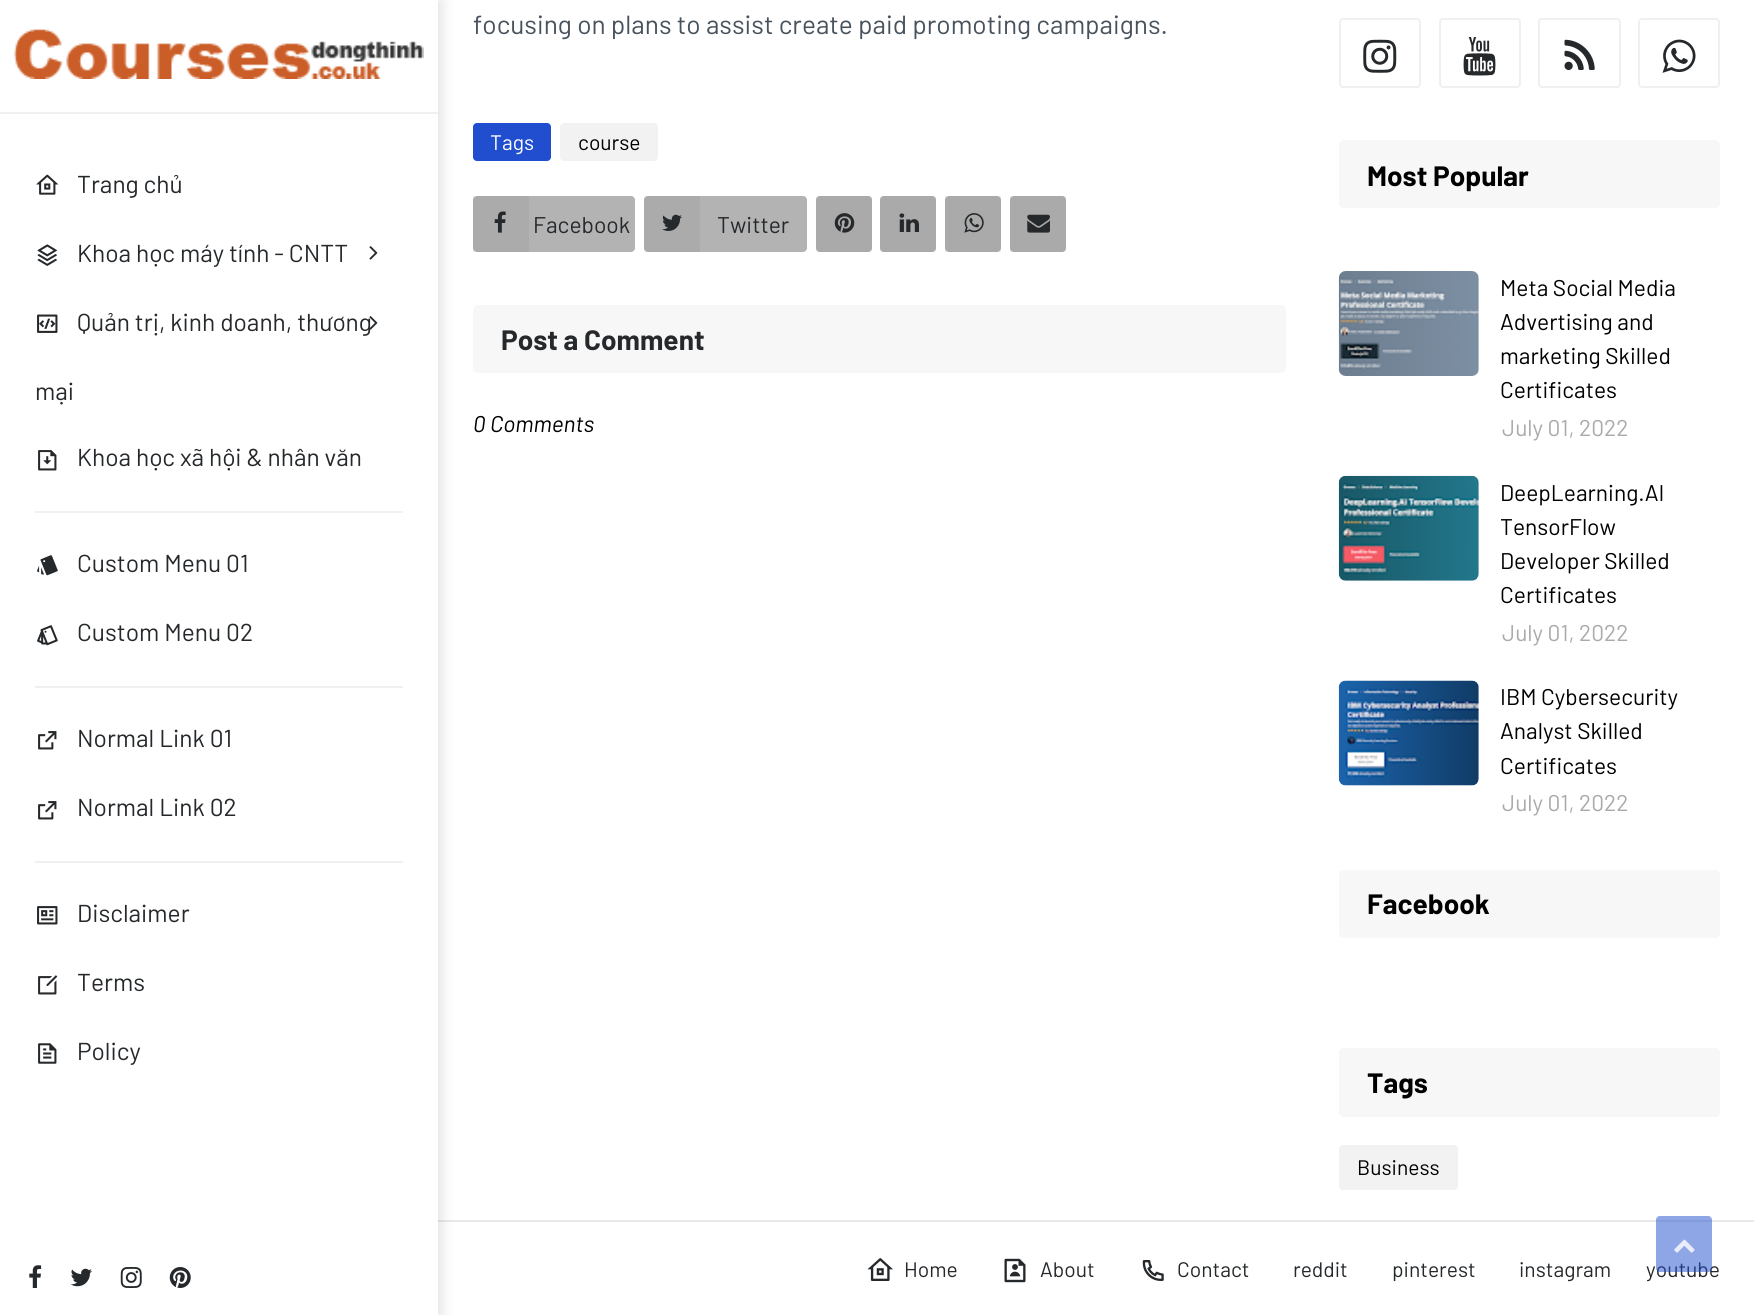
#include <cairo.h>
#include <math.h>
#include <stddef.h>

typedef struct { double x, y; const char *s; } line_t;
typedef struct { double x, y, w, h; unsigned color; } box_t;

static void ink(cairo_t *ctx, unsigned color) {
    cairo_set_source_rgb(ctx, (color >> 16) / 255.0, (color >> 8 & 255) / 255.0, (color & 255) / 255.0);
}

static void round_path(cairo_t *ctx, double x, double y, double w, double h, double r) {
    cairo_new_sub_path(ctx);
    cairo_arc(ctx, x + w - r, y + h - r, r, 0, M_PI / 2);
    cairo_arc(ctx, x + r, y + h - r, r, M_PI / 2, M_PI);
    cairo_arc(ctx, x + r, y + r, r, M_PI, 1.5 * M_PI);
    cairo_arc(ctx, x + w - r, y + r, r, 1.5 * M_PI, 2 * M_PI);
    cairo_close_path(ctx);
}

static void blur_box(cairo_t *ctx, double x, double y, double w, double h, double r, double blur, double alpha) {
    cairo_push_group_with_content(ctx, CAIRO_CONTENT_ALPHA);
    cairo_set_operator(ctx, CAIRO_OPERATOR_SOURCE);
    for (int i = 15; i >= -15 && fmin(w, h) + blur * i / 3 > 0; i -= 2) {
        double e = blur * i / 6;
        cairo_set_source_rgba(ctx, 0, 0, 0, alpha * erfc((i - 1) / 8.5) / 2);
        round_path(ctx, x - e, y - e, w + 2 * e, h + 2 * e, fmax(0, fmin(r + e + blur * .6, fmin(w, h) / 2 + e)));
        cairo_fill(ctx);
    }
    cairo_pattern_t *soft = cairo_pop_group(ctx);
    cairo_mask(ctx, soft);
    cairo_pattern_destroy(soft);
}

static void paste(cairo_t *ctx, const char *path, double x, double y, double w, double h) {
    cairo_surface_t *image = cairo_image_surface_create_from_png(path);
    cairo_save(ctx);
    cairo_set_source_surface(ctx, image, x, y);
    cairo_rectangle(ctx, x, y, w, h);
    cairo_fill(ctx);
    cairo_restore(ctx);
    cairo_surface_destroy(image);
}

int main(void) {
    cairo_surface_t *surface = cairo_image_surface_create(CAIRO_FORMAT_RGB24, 1754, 1315);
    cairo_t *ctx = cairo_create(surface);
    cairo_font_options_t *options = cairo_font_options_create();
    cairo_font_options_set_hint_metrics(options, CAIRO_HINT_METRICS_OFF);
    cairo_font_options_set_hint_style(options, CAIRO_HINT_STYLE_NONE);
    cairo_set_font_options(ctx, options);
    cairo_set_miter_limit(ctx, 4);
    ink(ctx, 0xFFFFFF);
    cairo_paint(ctx);
    {
        static const box_t items[] = {
            {1010, 196, 56, 56, 0xF2F2F2},
            {945, 196, 56, 56, 0xF2F2F2},
            {880, 196, 56, 56, 0xF2F2F2},
            {816, 196, 56, 56, 0xF2F2F2},
            {438, 1220, 1316, 2, 0xE9E9E9},
        };
        for (size_t i = 0; i < sizeof items / sizeof *items; i++) {
            ink(ctx, items[i].color);
            cairo_rectangle(ctx, items[i].x, items[i].y, items[i].w, items[i].h);
            cairo_fill(ctx);
        }
    }
    ink(ctx, 0x000000);
    blur_box(ctx, 5, 0, 438, 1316, 0, 6, 0.1);
    ink(ctx, 0xFFFFFF);
    cairo_rectangle(ctx, 0, 0, 438, 1315);
    cairo_fill(ctx);
    ink(ctx, 0xF0F0F0);
    cairo_rectangle(ctx, 0, 112, 438, 2);
    cairo_fill(ctx);
    paste(ctx, "media/1.png", 14, 29, 410, 50);
    cairo_rectangle(ctx, 35, 511, 368, 2);
    cairo_fill(ctx);
    paste(ctx, "media/2.png", 36, 174, 23, 21);
    cairo_select_font_face(ctx, "Barlow", CAIRO_FONT_SLANT_NORMAL, CAIRO_FONT_WEIGHT_NORMAL);
    cairo_set_font_size(ctx, 24.5);
    ink(ctx, 0x26292C);
    cairo_move_to(ctx, 77, 193);
    cairo_show_text(ctx, "Trang chủ");
    paste(ctx, "media/3.png", 37, 244, 20, 22);
    cairo_move_to(ctx, 77, 262);
    cairo_show_text(ctx, "Khoa học máy tính - CNTT");
    paste(ctx, "media/4.png", 369, 246, 9, 14);
    paste(ctx, "media/5.png", 37, 314, 21, 19);
    cairo_move_to(ctx, 77, 331);
    cairo_show_text(ctx, "Quản trị, kinh doanh, thương");
    cairo_move_to(ctx, 35, 400);
    cairo_show_text(ctx, "mại");
    paste(ctx, "media/6.png", 369, 316, 9, 14);
    paste(ctx, "media/7.png", 38, 450, 19, 21);
    cairo_move_to(ctx, 77, 466);
    cairo_show_text(ctx, "Khoa học xã hội & nhân văn");
    ink(ctx, 0xF0F0F0);
    cairo_rectangle(ctx, 35, 686, 368, 2);
    cairo_fill(ctx);
    paste(ctx, "media/8.png", 37, 555, 21, 21);
    ink(ctx, 0x26292C);
    cairo_move_to(ctx, 77, 572);
    cairo_show_text(ctx, "Custom Menu 01");
    paste(ctx, "media/9.png", 37, 625, 21, 21);
    cairo_move_to(ctx, 77, 641);
    cairo_show_text(ctx, "Custom Menu 02");
    ink(ctx, 0xF0F0F0);
    cairo_rectangle(ctx, 35, 861, 368, 2);
    cairo_fill(ctx);
    paste(ctx, "media/10.png", 38, 731, 19, 19);
    ink(ctx, 0x26292C);
    cairo_move_to(ctx, 77, 747);
    cairo_show_text(ctx, "Normal Link 01");
    paste(ctx, "media/10.png", 38, 801, 19, 19);
    cairo_move_to(ctx, 77, 816);
    cairo_show_text(ctx, "Normal Link 02");
    paste(ctx, "media/11.png", 37, 906, 21, 19);
    cairo_move_to(ctx, 77, 922);
    cairo_show_text(ctx, "Disclaimer");
    paste(ctx, "media/12.png", 38, 975, 20, 20);
    cairo_move_to(ctx, 77, 991);
    cairo_show_text(ctx, "Terms");
    paste(ctx, "media/13.png", 38, 1043, 19, 21);
    cairo_move_to(ctx, 77, 1060);
    cairo_show_text(ctx, "Policy");
    paste(ctx, "media/14.png", 29, 1265, 13, 23);
    paste(ctx, "media/15.png", 70, 1268, 22, 19);
    paste(ctx, "media/16.png", 120, 1267, 22, 21);
    paste(ctx, "media/17.png", 169, 1267, 22, 21);
    cairo_set_font_size(ctx, 26.25);
    ink(ctx, 0x48525C);
    cairo_move_to(ctx, 473, 34);
    cairo_show_text(ctx, "focusing on plans to assist create paid promoting campaigns.");
    ink(ctx, 0x204ECF);
    round_path(ctx, 473, 123, 78, 38, 4);
    cairo_fill(ctx);
    cairo_set_font_size(ctx, 21);
    ink(ctx, 0xFFFFFF);
    cairo_move_to(ctx, 490, 150);
    cairo_show_text(ctx, "Tags");
    ink(ctx, 0xF2F2F2);
    round_path(ctx, 560, 123, 98, 38, 4);
    cairo_fill(ctx);
    ink(ctx, 0x000000);
    cairo_move_to(ctx, 578, 150);
    cairo_show_text(ctx, "course");
    ink(ctx, 0xB3B3B3);
    round_path(ctx, 473, 196, 162, 56, 4);
    cairo_fill(ctx);
    cairo_set_source_rgba(ctx, 0, 0, 0, 0.05);
    cairo_rectangle(ctx, 473, 196, 56, 56);
    cairo_fill(ctx);
    paste(ctx, "media/18.png", 494, 211, 12, 22);
    cairo_set_font_size(ctx, 22.75);
    ink(ctx, 0x26292C);
    cairo_move_to(ctx, 533, 233);
    cairo_show_text(ctx, "Facebook");
    ink(ctx, 0xB3B3B3);
    round_path(ctx, 644, 196, 163, 56, 4);
    cairo_fill(ctx);
    cairo_set_source_rgba(ctx, 0, 0, 0, 0.05);
    cairo_rectangle(ctx, 644, 196, 56, 56);
    cairo_fill(ctx);
    paste(ctx, "media/19.png", 662, 214, 20, 17);
    ink(ctx, 0x26292C);
    cairo_move_to(ctx, 717, 233);
    cairo_show_text(ctx, "Twitter");
    ink(ctx, 0xAAAAAA);
    round_path(ctx, 816, 196, 56, 56, 4);
    cairo_fill(ctx);
    paste(ctx, "media/20.png", 834, 213, 21, 20);
    round_path(ctx, 880, 196, 56, 56, 4);
    cairo_fill(ctx);
    paste(ctx, "media/21.png", 899, 213, 20, 19);
    round_path(ctx, 945, 196, 56, 56, 4);
    cairo_fill(ctx);
    paste(ctx, "media/22.png", 964, 213, 20, 20);
    round_path(ctx, 1010, 196, 56, 56, 4);
    cairo_fill(ctx);
    paste(ctx, "media/23.png", 1027, 214, 23, 19);
    ink(ctx, 0xF7F7F7);
    round_path(ctx, 473, 305, 813, 68, 5);
    cairo_fill(ctx);
    cairo_select_font_face(ctx, "Barlow", CAIRO_FONT_SLANT_NORMAL, CAIRO_FONT_WEIGHT_BOLD);
    cairo_set_font_size(ctx, 28);
    ink(ctx, 0x26292C);
    cairo_move_to(ctx, 501, 350);
    cairo_show_text(ctx, "Post a Comment");
    cairo_select_font_face(ctx, "Barlow", CAIRO_FONT_SLANT_ITALIC, CAIRO_FONT_WEIGHT_NORMAL);
    cairo_set_font_size(ctx, 22.75);
    ink(ctx, 0x000000);
    cairo_move_to(ctx, 473, 432);
    cairo_show_text(ctx, "0 Comments");
    round_path(ctx, 1340, 19, 80, 68, 3);
    ink(ctx, 0xF0F0F0);
    cairo_stroke(ctx);
    paste(ctx, "media/24.png", 1363, 39, 34, 34);
    round_path(ctx, 1440, 19, 80, 68, 3);
    cairo_stroke(ctx);
    paste(ctx, "media/25.png", 1463, 37, 33, 39);
    round_path(ctx, 1539, 19, 81, 68, 3);
    cairo_stroke(ctx);
    paste(ctx, "media/26.png", 1564, 39, 31, 31);
    round_path(ctx, 1639, 19, 80, 68, 3);
    cairo_stroke(ctx);
    paste(ctx, "media/27.png", 1662, 39, 34, 34);
    ink(ctx, 0xF7F7F7);
    round_path(ctx, 1339, 140, 381, 68, 5);
    cairo_fill(ctx);
    cairo_select_font_face(ctx, "Barlow", CAIRO_FONT_SLANT_NORMAL, CAIRO_FONT_WEIGHT_BOLD);
    cairo_set_font_size(ctx, 28);
    ink(ctx, 0x000000);
    cairo_move_to(ctx, 1367, 186);
    cairo_show_text(ctx, "Most Popular");
    ink(ctx, 0xF8F8F8);
    round_path(ctx, 1339, 271, 140, 105, 7);
    cairo_fill(ctx);
    paste(ctx, "media/28.png", 1338, 271, 141, 105);
    cairo_select_font_face(ctx, "Barlow", CAIRO_FONT_SLANT_NORMAL, CAIRO_FONT_WEIGHT_NORMAL);
    cairo_set_font_size(ctx, 22.75);
    ink(ctx, 0x000000);
    {
        static const line_t items[] = {
            {1500, 296, "Meta Social Media"},
            {1500, 330, "Advertising and"},
            {1500, 364, "marketing Skilled"},
            {1500, 398, "Certificates"},
        };
        for (size_t i = 0; i < sizeof items / sizeof *items; i++) {
            cairo_move_to(ctx, items[i].x, items[i].y);
            cairo_show_text(ctx, items[i].s);
        }
    }
    ink(ctx, 0xAAAAAA);
    cairo_move_to(ctx, 1502, 436);
    cairo_show_text(ctx, "July 01, 2022");
    ink(ctx, 0xF8F8F8);
    round_path(ctx, 1339, 476, 140, 105, 7);
    cairo_fill(ctx);
    paste(ctx, "media/29.png", 1338, 475, 141, 106);
    ink(ctx, 0x000000);
    {
        static const line_t items[] = {
            {1500, 501, "DeepLearning.AI"},
            {1500, 535, "TensorFlow"},
            {1500, 569, "Developer Skilled"},
            {1500, 603, "Certificates"},
        };
        for (size_t i = 0; i < sizeof items / sizeof *items; i++) {
            cairo_move_to(ctx, items[i].x, items[i].y);
            cairo_show_text(ctx, items[i].s);
        }
    }
    ink(ctx, 0xAAAAAA);
    cairo_move_to(ctx, 1502, 641);
    cairo_show_text(ctx, "July 01, 2022");
    ink(ctx, 0xF8F8F8);
    round_path(ctx, 1339, 681, 140, 105, 7);
    cairo_fill(ctx);
    paste(ctx, "media/30.png", 1338, 680, 141, 106);
    ink(ctx, 0x000000);
    {
        static const line_t items[] = {
            {1500, 705, "IBM Cybersecurity"},
            {1500, 739, "Analyst Skilled"},
            {1500, 774, "Certificates"},
        };
        for (size_t i = 0; i < sizeof items / sizeof *items; i++) {
            cairo_move_to(ctx, items[i].x, items[i].y);
            cairo_show_text(ctx, items[i].s);
        }
    }
    ink(ctx, 0xAAAAAA);
    cairo_move_to(ctx, 1502, 811);
    cairo_show_text(ctx, "July 01, 2022");
    ink(ctx, 0xF7F7F7);
    round_path(ctx, 1339, 870, 381, 68, 5);
    cairo_fill(ctx);
    cairo_select_font_face(ctx, "Barlow", CAIRO_FONT_SLANT_NORMAL, CAIRO_FONT_WEIGHT_BOLD);
    cairo_set_font_size(ctx, 28);
    ink(ctx, 0x000000);
    cairo_move_to(ctx, 1367, 914);
    cairo_show_text(ctx, "Facebook");
    ink(ctx, 0xF7F7F7);
    round_path(ctx, 1339, 1048, 381, 69, 5);
    cairo_fill(ctx);
    ink(ctx, 0x000000);
    cairo_move_to(ctx, 1367, 1093);
    cairo_show_text(ctx, "Tags");
    ink(ctx, 0xF2F2F2);
    round_path(ctx, 1339, 1145, 119, 45, 4);
    cairo_fill(ctx);
    cairo_select_font_face(ctx, "Barlow", CAIRO_FONT_SLANT_NORMAL, CAIRO_FONT_WEIGHT_NORMAL);
    cairo_set_font_size(ctx, 21);
    ink(ctx, 0x000000);
    cairo_move_to(ctx, 1357, 1175);
    cairo_show_text(ctx, "Business");
    paste(ctx, "media/31.png", 867, 1258, 26, 23);
    ink(ctx, 0x26292C);
    cairo_move_to(ctx, 904, 1277);
    cairo_show_text(ctx, "Home");
    paste(ctx, "media/32.png", 1004, 1258, 22, 25);
    cairo_move_to(ctx, 1040, 1277);
    cairo_show_text(ctx, "About");
    paste(ctx, "media/33.png", 1142, 1260, 22, 21);
    {
        static const line_t items[] = {
            {1177, 1277, "Contact"},
            {1293, 1277, "reddit"},
            {1392, 1277, "pinterest"},
            {1519, 1277, "instagram"},
            {1646, 1277, "youtube"},
        };
        for (size_t i = 0; i < sizeof items / sizeof *items; i++) {
            cairo_move_to(ctx, items[i].x, items[i].y);
            cairo_show_text(ctx, items[i].s);
        }
    }
    cairo_set_source_rgba(ctx, 0.125, 0.306, 0.812, 0.5);
    round_path(ctx, 1656, 1216, 56, 56, 4);
    cairo_fill(ctx);
    paste(ctx, "media/34.png", 1674, 1239, 21, 14);
    cairo_surface_write_to_png(surface, "image.png");
    cairo_font_options_destroy(options);
    cairo_destroy(ctx);
    cairo_surface_destroy(surface);
    return 0;
}
